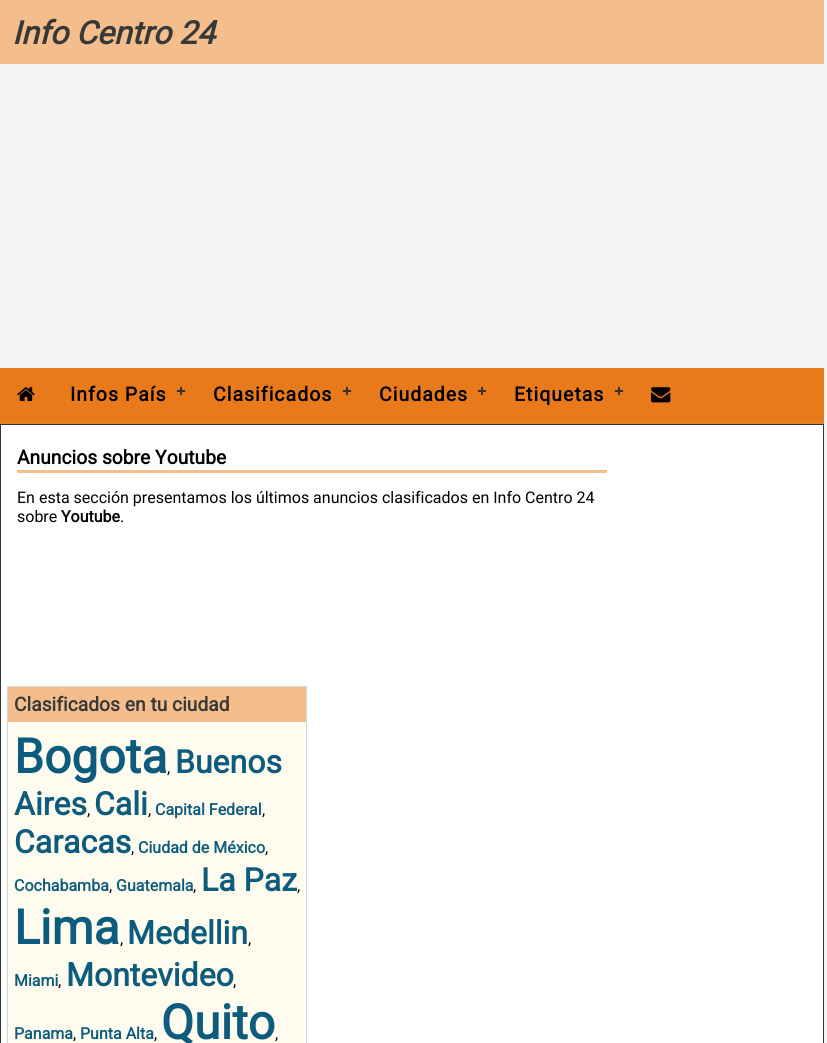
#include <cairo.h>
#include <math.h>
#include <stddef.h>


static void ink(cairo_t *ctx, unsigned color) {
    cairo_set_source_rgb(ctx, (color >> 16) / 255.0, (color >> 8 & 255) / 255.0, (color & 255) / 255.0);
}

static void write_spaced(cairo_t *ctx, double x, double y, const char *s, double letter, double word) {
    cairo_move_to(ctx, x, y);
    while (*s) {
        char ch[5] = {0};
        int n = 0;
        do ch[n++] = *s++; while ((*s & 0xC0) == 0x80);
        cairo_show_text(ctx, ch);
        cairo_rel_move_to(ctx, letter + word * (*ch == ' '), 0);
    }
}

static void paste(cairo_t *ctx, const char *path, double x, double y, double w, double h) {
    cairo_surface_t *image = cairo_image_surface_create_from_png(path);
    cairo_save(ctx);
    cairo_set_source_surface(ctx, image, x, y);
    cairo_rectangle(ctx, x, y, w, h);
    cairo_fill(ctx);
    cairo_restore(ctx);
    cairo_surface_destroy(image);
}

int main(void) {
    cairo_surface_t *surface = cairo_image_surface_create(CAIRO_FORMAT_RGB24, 827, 1043);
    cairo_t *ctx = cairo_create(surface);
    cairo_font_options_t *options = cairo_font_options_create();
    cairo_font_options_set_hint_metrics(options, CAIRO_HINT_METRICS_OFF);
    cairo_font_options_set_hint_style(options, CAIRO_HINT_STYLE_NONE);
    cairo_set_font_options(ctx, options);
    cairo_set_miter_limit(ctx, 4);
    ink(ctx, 0xF5F5F5);
    cairo_paint(ctx);
    ink(ctx, 0xF3BE8C);
    cairo_rectangle(ctx, 0, 0, 824, 64);
    cairo_fill(ctx);
    cairo_select_font_face(ctx, "Roboto", CAIRO_FONT_SLANT_ITALIC, CAIRO_FONT_WEIGHT_BOLD);
    cairo_set_font_size(ctx, 32);
    ink(ctx, 0x383838);
    cairo_move_to(ctx, 12, 44);
    cairo_show_text(ctx, "Info Centro 24");
    ink(ctx, 0xE67E22);
    cairo_rectangle(ctx, 0, 421, 824, 3);
    cairo_fill(ctx);
    ink(ctx, 0xE97A1B);
    cairo_rectangle(ctx, 0, 368, 824, 53);
    cairo_fill(ctx);
    paste(ctx, "media/1.png", 17, 387, 18, 14);
    cairo_select_font_face(ctx, "Roboto", CAIRO_FONT_SLANT_NORMAL, CAIRO_FONT_WEIGHT_BOLD);
    cairo_set_font_size(ctx, 19.5);
    ink(ctx, 0x000000);
    write_spaced(ctx, 70, 401, "Infos País", 1, 0);
    ink(ctx, 0x323232);
    cairo_rectangle(ctx, 180, 387, 2, 8);
    cairo_fill(ctx);
    cairo_rectangle(ctx, 177, 390, 8, 2);
    cairo_fill(ctx);
    ink(ctx, 0x000000);
    write_spaced(ctx, 213, 401, "Clasificados", 1, 0);
    ink(ctx, 0x323232);
    cairo_rectangle(ctx, 346, 387, 2, 8);
    cairo_fill(ctx);
    cairo_rectangle(ctx, 343, 390, 8, 2);
    cairo_fill(ctx);
    ink(ctx, 0x000000);
    write_spaced(ctx, 379, 401, "Ciudades", 1, 0);
    ink(ctx, 0x323232);
    cairo_rectangle(ctx, 481, 387, 2, 8);
    cairo_fill(ctx);
    cairo_rectangle(ctx, 478, 390, 8, 2);
    cairo_fill(ctx);
    ink(ctx, 0x000000);
    write_spaced(ctx, 514, 401, "Etiquetas", 1, 0);
    ink(ctx, 0x323232);
    cairo_rectangle(ctx, 618, 387, 2, 8);
    cairo_fill(ctx);
    cairo_rectangle(ctx, 615, 390, 8, 2);
    cairo_fill(ctx);
    paste(ctx, "media/2.png", 651, 387, 20, 16);
    ink(ctx, 0xFFFFFF);
    cairo_rectangle(ctx, 0.5, 424.5, 823, 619);
    cairo_fill_preserve(ctx);
    ink(ctx, 0x323232);
    cairo_set_line_width(ctx, 1);
    cairo_stroke(ctx);
    ink(ctx, 0xF3BE8C);
    cairo_rectangle(ctx, 17, 470, 590, 3);
    cairo_fill(ctx);
    cairo_set_font_size(ctx, 19.25);
    ink(ctx, 0x000000);
    cairo_move_to(ctx, 17, 464);
    cairo_show_text(ctx, "Anuncios sobre Youtube");
    cairo_select_font_face(ctx, "Roboto", CAIRO_FONT_SLANT_NORMAL, CAIRO_FONT_WEIGHT_NORMAL);
    cairo_set_font_size(ctx, 16);
    cairo_move_to(ctx, 17, 503);
    cairo_show_text(ctx, "En esta sección presentamos los últimos anuncios clasificados en Info Centro 24");
    cairo_move_to(ctx, 17, 522);
    cairo_show_text(ctx, "sobre");
    cairo_select_font_face(ctx, "Roboto", CAIRO_FONT_SLANT_NORMAL, CAIRO_FONT_WEIGHT_BOLD);
    cairo_move_to(ctx, 61, 522);
    cairo_show_text(ctx, "Youtube");
    cairo_select_font_face(ctx, "Roboto", CAIRO_FONT_SLANT_NORMAL, CAIRO_FONT_WEIGHT_NORMAL);
    cairo_move_to(ctx, 120, 522);
    cairo_show_text(ctx, ".");
    cairo_rectangle(ctx, 7.5, 686.5, 299, 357);
    ink(ctx, 0xCBD8D8);
    cairo_stroke(ctx);
    ink(ctx, 0xF3BE8C);
    cairo_rectangle(ctx, 8, 687, 298, 35);
    cairo_fill(ctx);
    cairo_select_font_face(ctx, "Roboto", CAIRO_FONT_SLANT_NORMAL, CAIRO_FONT_WEIGHT_BOLD);
    cairo_set_font_size(ctx, 19.25);
    ink(ctx, 0x383838);
    cairo_move_to(ctx, 14, 711);
    cairo_show_text(ctx, "Clasificados en tu ciudad");
    ink(ctx, 0xFFFBEF);
    cairo_rectangle(ctx, 8, 722, 298, 321);
    cairo_fill(ctx);
    cairo_set_font_size(ctx, 48);
    ink(ctx, 0x0D5C7D);
    cairo_move_to(ctx, 14, 773);
    cairo_show_text(ctx, "Bogota");
    cairo_select_font_face(ctx, "Roboto", CAIRO_FONT_SLANT_NORMAL, CAIRO_FONT_WEIGHT_NORMAL);
    cairo_set_font_size(ctx, 16);
    ink(ctx, 0x000000);
    cairo_move_to(ctx, 167, 773);
    cairo_show_text(ctx, ",");
    cairo_select_font_face(ctx, "Roboto", CAIRO_FONT_SLANT_NORMAL, CAIRO_FONT_WEIGHT_BOLD);
    cairo_set_font_size(ctx, 32);
    ink(ctx, 0x0D5C7D);
    cairo_move_to(ctx, 175, 773);
    cairo_show_text(ctx, "Buenos");
    cairo_move_to(ctx, 14, 815);
    cairo_show_text(ctx, "Aires");
    cairo_select_font_face(ctx, "Roboto", CAIRO_FONT_SLANT_NORMAL, CAIRO_FONT_WEIGHT_NORMAL);
    cairo_set_font_size(ctx, 16);
    ink(ctx, 0x000000);
    cairo_move_to(ctx, 87, 815);
    cairo_show_text(ctx, ",");
    cairo_select_font_face(ctx, "Roboto", CAIRO_FONT_SLANT_NORMAL, CAIRO_FONT_WEIGHT_BOLD);
    cairo_set_font_size(ctx, 32);
    ink(ctx, 0x0D5C7D);
    cairo_move_to(ctx, 94, 815);
    cairo_show_text(ctx, "Cali");
    cairo_select_font_face(ctx, "Roboto", CAIRO_FONT_SLANT_NORMAL, CAIRO_FONT_WEIGHT_NORMAL);
    cairo_set_font_size(ctx, 16);
    ink(ctx, 0x000000);
    cairo_move_to(ctx, 148, 815);
    cairo_show_text(ctx, ",");
    cairo_select_font_face(ctx, "Roboto", CAIRO_FONT_SLANT_NORMAL, CAIRO_FONT_WEIGHT_BOLD);
    ink(ctx, 0x0D5C7D);
    cairo_move_to(ctx, 155, 815);
    cairo_show_text(ctx, "Capital Federal");
    cairo_select_font_face(ctx, "Roboto", CAIRO_FONT_SLANT_NORMAL, CAIRO_FONT_WEIGHT_NORMAL);
    ink(ctx, 0x000000);
    cairo_move_to(ctx, 262, 815);
    cairo_show_text(ctx, ",");
    cairo_select_font_face(ctx, "Roboto", CAIRO_FONT_SLANT_NORMAL, CAIRO_FONT_WEIGHT_BOLD);
    cairo_set_font_size(ctx, 32);
    ink(ctx, 0x0D5C7D);
    cairo_move_to(ctx, 14, 853);
    cairo_show_text(ctx, "Caracas");
    cairo_select_font_face(ctx, "Roboto", CAIRO_FONT_SLANT_NORMAL, CAIRO_FONT_WEIGHT_NORMAL);
    cairo_set_font_size(ctx, 16);
    ink(ctx, 0x000000);
    cairo_move_to(ctx, 131, 853);
    cairo_show_text(ctx, ",");
    cairo_select_font_face(ctx, "Roboto", CAIRO_FONT_SLANT_NORMAL, CAIRO_FONT_WEIGHT_BOLD);
    ink(ctx, 0x0D5C7D);
    cairo_move_to(ctx, 138, 853);
    cairo_show_text(ctx, "Ciudad de México");
    cairo_select_font_face(ctx, "Roboto", CAIRO_FONT_SLANT_NORMAL, CAIRO_FONT_WEIGHT_NORMAL);
    ink(ctx, 0x000000);
    cairo_move_to(ctx, 265, 853);
    cairo_show_text(ctx, ",");
    cairo_select_font_face(ctx, "Roboto", CAIRO_FONT_SLANT_NORMAL, CAIRO_FONT_WEIGHT_BOLD);
    ink(ctx, 0x0D5C7D);
    cairo_move_to(ctx, 14, 891);
    cairo_show_text(ctx, "Cochabamba");
    cairo_select_font_face(ctx, "Roboto", CAIRO_FONT_SLANT_NORMAL, CAIRO_FONT_WEIGHT_NORMAL);
    ink(ctx, 0x000000);
    cairo_move_to(ctx, 109, 891);
    cairo_show_text(ctx, ",");
    cairo_select_font_face(ctx, "Roboto", CAIRO_FONT_SLANT_NORMAL, CAIRO_FONT_WEIGHT_BOLD);
    ink(ctx, 0x0D5C7D);
    cairo_move_to(ctx, 116, 891);
    cairo_show_text(ctx, "Guatemala");
    cairo_select_font_face(ctx, "Roboto", CAIRO_FONT_SLANT_NORMAL, CAIRO_FONT_WEIGHT_NORMAL);
    ink(ctx, 0x000000);
    cairo_move_to(ctx, 193, 891);
    cairo_show_text(ctx, ",");
    cairo_select_font_face(ctx, "Roboto", CAIRO_FONT_SLANT_NORMAL, CAIRO_FONT_WEIGHT_BOLD);
    cairo_set_font_size(ctx, 32);
    ink(ctx, 0x0D5C7D);
    cairo_move_to(ctx, 201, 891);
    cairo_show_text(ctx, "La Paz");
    cairo_select_font_face(ctx, "Roboto", CAIRO_FONT_SLANT_NORMAL, CAIRO_FONT_WEIGHT_NORMAL);
    cairo_set_font_size(ctx, 16);
    ink(ctx, 0x000000);
    cairo_move_to(ctx, 297, 891);
    cairo_show_text(ctx, ",");
    cairo_select_font_face(ctx, "Roboto", CAIRO_FONT_SLANT_NORMAL, CAIRO_FONT_WEIGHT_BOLD);
    cairo_set_font_size(ctx, 48);
    ink(ctx, 0x0D5C7D);
    cairo_move_to(ctx, 14, 944);
    cairo_show_text(ctx, "Lima");
    cairo_select_font_face(ctx, "Roboto", CAIRO_FONT_SLANT_NORMAL, CAIRO_FONT_WEIGHT_NORMAL);
    cairo_set_font_size(ctx, 16);
    ink(ctx, 0x000000);
    cairo_move_to(ctx, 120, 944);
    cairo_show_text(ctx, ",");
    cairo_select_font_face(ctx, "Roboto", CAIRO_FONT_SLANT_NORMAL, CAIRO_FONT_WEIGHT_BOLD);
    cairo_set_font_size(ctx, 32);
    ink(ctx, 0x0D5C7D);
    cairo_move_to(ctx, 127, 944);
    cairo_show_text(ctx, "Medellin");
    cairo_select_font_face(ctx, "Roboto", CAIRO_FONT_SLANT_NORMAL, CAIRO_FONT_WEIGHT_NORMAL);
    cairo_set_font_size(ctx, 16);
    ink(ctx, 0x000000);
    cairo_move_to(ctx, 248, 944);
    cairo_show_text(ctx, ",");
    cairo_select_font_face(ctx, "Roboto", CAIRO_FONT_SLANT_NORMAL, CAIRO_FONT_WEIGHT_BOLD);
    ink(ctx, 0x0D5C7D);
    cairo_move_to(ctx, 14, 986);
    cairo_show_text(ctx, "Miami");
    cairo_select_font_face(ctx, "Roboto", CAIRO_FONT_SLANT_NORMAL, CAIRO_FONT_WEIGHT_NORMAL);
    ink(ctx, 0x000000);
    cairo_move_to(ctx, 58, 986);
    cairo_show_text(ctx, ",");
    cairo_select_font_face(ctx, "Roboto", CAIRO_FONT_SLANT_NORMAL, CAIRO_FONT_WEIGHT_BOLD);
    cairo_set_font_size(ctx, 32);
    ink(ctx, 0x0D5C7D);
    cairo_move_to(ctx, 66, 986);
    cairo_show_text(ctx, "Montevideo");
    cairo_select_font_face(ctx, "Roboto", CAIRO_FONT_SLANT_NORMAL, CAIRO_FONT_WEIGHT_NORMAL);
    cairo_set_font_size(ctx, 16);
    ink(ctx, 0x000000);
    cairo_move_to(ctx, 233, 986);
    cairo_show_text(ctx, ",");
    cairo_select_font_face(ctx, "Roboto", CAIRO_FONT_SLANT_NORMAL, CAIRO_FONT_WEIGHT_BOLD);
    ink(ctx, 0x0D5C7D);
    cairo_move_to(ctx, 14, 1039);
    cairo_show_text(ctx, "Panama");
    cairo_select_font_face(ctx, "Roboto", CAIRO_FONT_SLANT_NORMAL, CAIRO_FONT_WEIGHT_NORMAL);
    ink(ctx, 0x000000);
    cairo_move_to(ctx, 73, 1039);
    cairo_show_text(ctx, ",");
    cairo_select_font_face(ctx, "Roboto", CAIRO_FONT_SLANT_NORMAL, CAIRO_FONT_WEIGHT_BOLD);
    ink(ctx, 0x0D5C7D);
    cairo_move_to(ctx, 80, 1039);
    cairo_show_text(ctx, "Punta Alta");
    cairo_select_font_face(ctx, "Roboto", CAIRO_FONT_SLANT_NORMAL, CAIRO_FONT_WEIGHT_NORMAL);
    ink(ctx, 0x000000);
    cairo_move_to(ctx, 154, 1039);
    cairo_show_text(ctx, ",");
    cairo_select_font_face(ctx, "Roboto", CAIRO_FONT_SLANT_NORMAL, CAIRO_FONT_WEIGHT_BOLD);
    cairo_set_font_size(ctx, 48);
    ink(ctx, 0x0D5C7D);
    cairo_move_to(ctx, 161, 1039);
    cairo_show_text(ctx, "Quito");
    cairo_select_font_face(ctx, "Roboto", CAIRO_FONT_SLANT_NORMAL, CAIRO_FONT_WEIGHT_NORMAL);
    cairo_set_font_size(ctx, 16);
    ink(ctx, 0x000000);
    cairo_move_to(ctx, 275, 1039);
    cairo_show_text(ctx, ",");
    cairo_surface_write_to_png(surface, "image.png");
    cairo_font_options_destroy(options);
    cairo_destroy(ctx);
    cairo_surface_destroy(surface);
    return 0;
}
